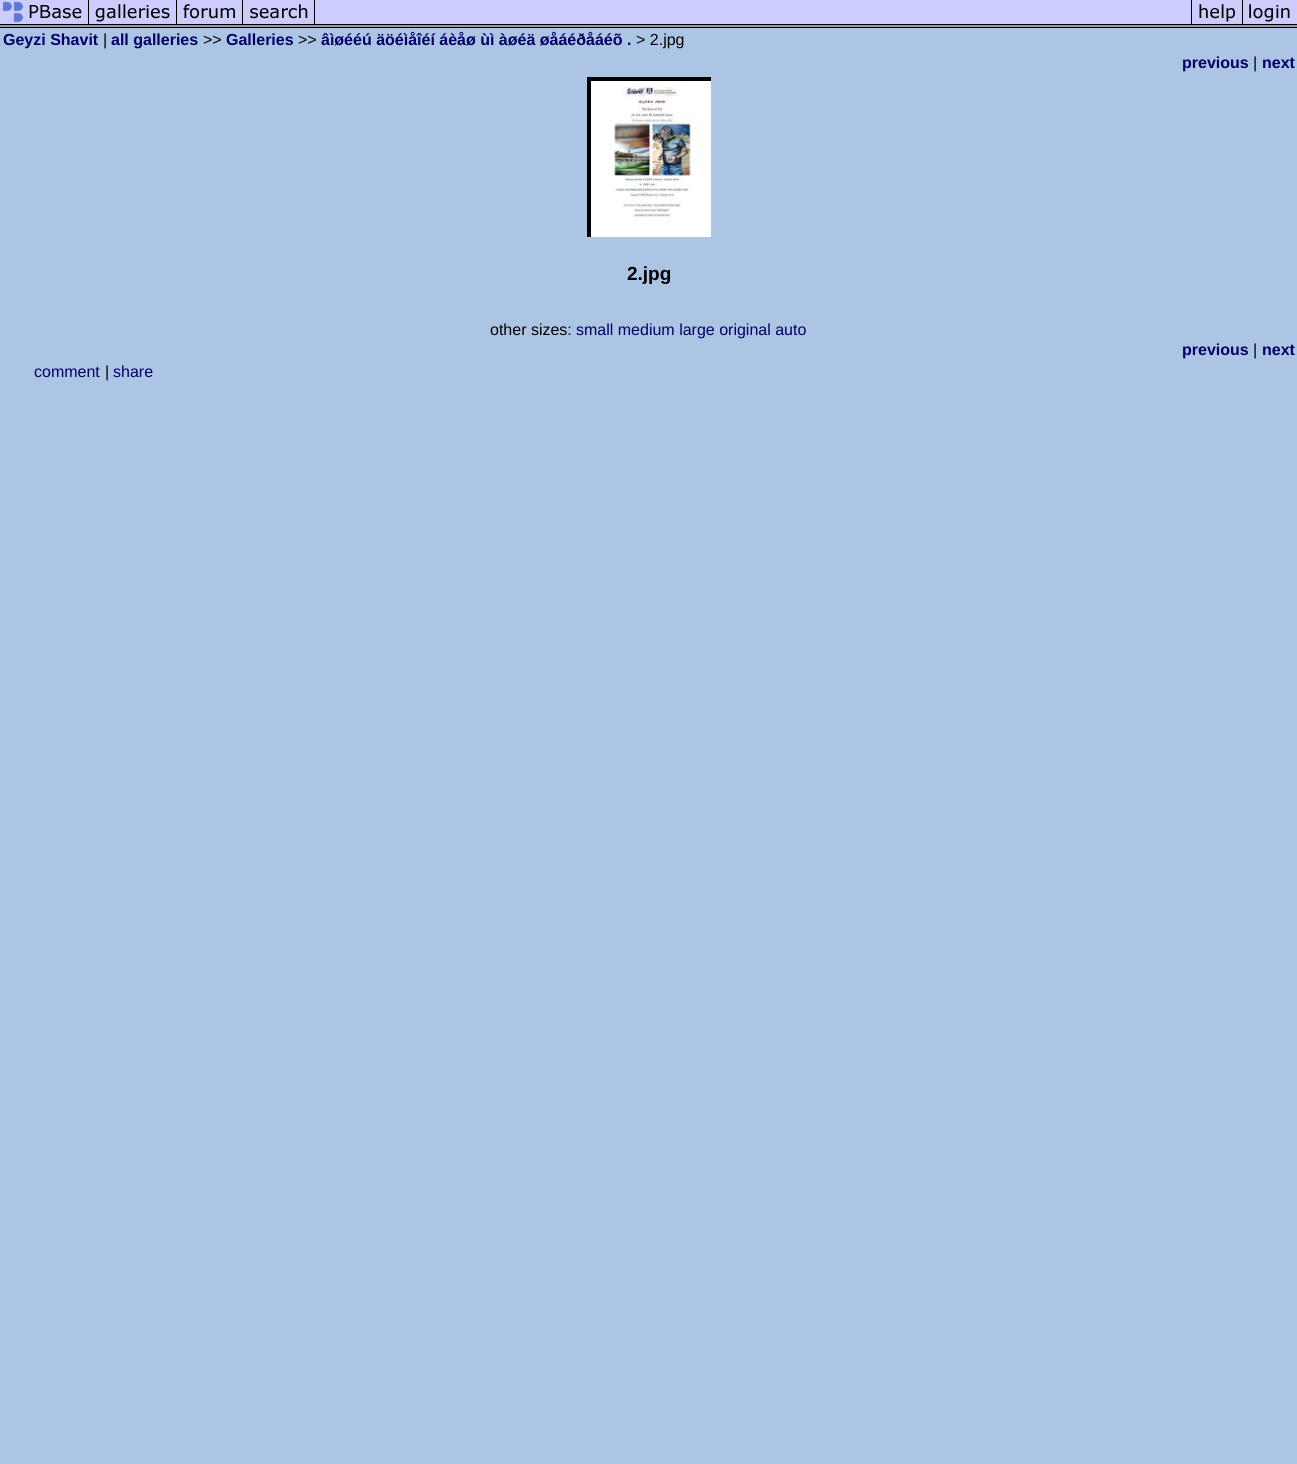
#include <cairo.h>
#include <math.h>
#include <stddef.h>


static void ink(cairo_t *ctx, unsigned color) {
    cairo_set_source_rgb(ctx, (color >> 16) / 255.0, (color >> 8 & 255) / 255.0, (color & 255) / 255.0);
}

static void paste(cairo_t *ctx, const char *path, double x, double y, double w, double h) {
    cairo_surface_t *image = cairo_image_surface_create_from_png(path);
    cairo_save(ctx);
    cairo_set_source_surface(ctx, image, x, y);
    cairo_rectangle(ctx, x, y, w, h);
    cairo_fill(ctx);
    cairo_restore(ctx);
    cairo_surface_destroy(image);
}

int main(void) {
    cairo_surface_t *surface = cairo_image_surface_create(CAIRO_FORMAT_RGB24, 1297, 1464);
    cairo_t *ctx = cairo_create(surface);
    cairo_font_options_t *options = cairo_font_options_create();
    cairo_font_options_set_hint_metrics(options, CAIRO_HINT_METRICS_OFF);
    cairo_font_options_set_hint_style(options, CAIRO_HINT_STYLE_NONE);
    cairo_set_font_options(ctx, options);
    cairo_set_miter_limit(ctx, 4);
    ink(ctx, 0xADC5E5);
    cairo_paint(ctx);
    paste(ctx, "media/1.png", 0, 0, 89, 28);
    paste(ctx, "media/2.png", 89, 0, 88, 28);
    paste(ctx, "media/3.png", 177, 0, 66, 28);
    paste(ctx, "media/4.png", 243, 0, 72, 28);
    paste(ctx, "media/5.png", 315, 0, 876, 28);
    paste(ctx, "media/6.png", 1191, 0, 52, 28);
    paste(ctx, "media/7.png", 1243, 0, 54, 28);
    cairo_select_font_face(ctx, "Liberation Sans", CAIRO_FONT_SLANT_NORMAL, CAIRO_FONT_WEIGHT_BOLD);
    cairo_set_font_size(ctx, 16);
    ink(ctx, 0x000066);
    cairo_move_to(ctx, 3, 45);
    cairo_show_text(ctx, "Geyzi Shavit");
    cairo_select_font_face(ctx, "Liberation Sans", CAIRO_FONT_SLANT_NORMAL, CAIRO_FONT_WEIGHT_NORMAL);
    ink(ctx, 0x000000);
    cairo_move_to(ctx, 103, 45);
    cairo_show_text(ctx, "|");
    cairo_select_font_face(ctx, "Liberation Sans", CAIRO_FONT_SLANT_NORMAL, CAIRO_FONT_WEIGHT_BOLD);
    ink(ctx, 0x000066);
    cairo_move_to(ctx, 111, 45);
    cairo_show_text(ctx, "all galleries");
    cairo_select_font_face(ctx, "Liberation Sans", CAIRO_FONT_SLANT_NORMAL, CAIRO_FONT_WEIGHT_NORMAL);
    ink(ctx, 0x000000);
    cairo_move_to(ctx, 203, 45);
    cairo_show_text(ctx, ">>");
    cairo_select_font_face(ctx, "Liberation Sans", CAIRO_FONT_SLANT_NORMAL, CAIRO_FONT_WEIGHT_BOLD);
    ink(ctx, 0x000066);
    cairo_move_to(ctx, 226, 45);
    cairo_show_text(ctx, "Galleries");
    cairo_select_font_face(ctx, "Liberation Sans", CAIRO_FONT_SLANT_NORMAL, CAIRO_FONT_WEIGHT_NORMAL);
    ink(ctx, 0x000000);
    cairo_move_to(ctx, 298, 45);
    cairo_show_text(ctx, ">>");
    cairo_select_font_face(ctx, "Liberation Sans", CAIRO_FONT_SLANT_NORMAL, CAIRO_FONT_WEIGHT_BOLD);
    ink(ctx, 0x000066);
    cairo_move_to(ctx, 321, 45);
    cairo_show_text(ctx, "âìøééú äöéìåîéí áèåø ùì àøéä øåáéðåáéõ .");
    cairo_select_font_face(ctx, "Liberation Sans", CAIRO_FONT_SLANT_NORMAL, CAIRO_FONT_WEIGHT_NORMAL);
    ink(ctx, 0x000000);
    cairo_move_to(ctx, 636, 45);
    cairo_show_text(ctx, "> 2.jpg");
    cairo_select_font_face(ctx, "Liberation Sans", CAIRO_FONT_SLANT_NORMAL, CAIRO_FONT_WEIGHT_BOLD);
    ink(ctx, 0x000066);
    cairo_move_to(ctx, 1182, 68);
    cairo_show_text(ctx, "previous");
    cairo_select_font_face(ctx, "Liberation Sans", CAIRO_FONT_SLANT_NORMAL, CAIRO_FONT_WEIGHT_NORMAL);
    ink(ctx, 0x000000);
    cairo_move_to(ctx, 1253, 68);
    cairo_show_text(ctx, "|");
    cairo_select_font_face(ctx, "Liberation Sans", CAIRO_FONT_SLANT_NORMAL, CAIRO_FONT_WEIGHT_BOLD);
    ink(ctx, 0x000066);
    cairo_move_to(ctx, 1262, 68);
    cairo_show_text(ctx, "next");
    cairo_save(ctx);
    cairo_rectangle(ctx, 587, 77, 124, 160);
    cairo_clip(ctx);
    cairo_rectangle(ctx, 589, 79, 126, 162);
    ink(ctx, 0x000000);
    cairo_set_line_width(ctx, 4);
    cairo_stroke(ctx);
    cairo_restore(ctx);
    paste(ctx, "media/8.png", 591, 81, 120, 156);
    cairo_set_font_size(ctx, 19);
    ink(ctx, 0x000000);
    cairo_move_to(ctx, 627, 280);
    cairo_show_text(ctx, "2.jpg");
    cairo_select_font_face(ctx, "Liberation Sans", CAIRO_FONT_SLANT_NORMAL, CAIRO_FONT_WEIGHT_NORMAL);
    cairo_set_font_size(ctx, 16);
    cairo_move_to(ctx, 490, 335);
    cairo_show_text(ctx, "other sizes:");
    ink(ctx, 0x000066);
    cairo_move_to(ctx, 576, 335);
    cairo_show_text(ctx, "small medium large original auto");
    cairo_select_font_face(ctx, "Liberation Sans", CAIRO_FONT_SLANT_NORMAL, CAIRO_FONT_WEIGHT_BOLD);
    cairo_move_to(ctx, 1182, 355);
    cairo_show_text(ctx, "previous");
    cairo_select_font_face(ctx, "Liberation Sans", CAIRO_FONT_SLANT_NORMAL, CAIRO_FONT_WEIGHT_NORMAL);
    ink(ctx, 0x000000);
    cairo_move_to(ctx, 1253, 355);
    cairo_show_text(ctx, "|");
    cairo_select_font_face(ctx, "Liberation Sans", CAIRO_FONT_SLANT_NORMAL, CAIRO_FONT_WEIGHT_BOLD);
    ink(ctx, 0x000066);
    cairo_move_to(ctx, 1262, 355);
    cairo_show_text(ctx, "next");
    cairo_select_font_face(ctx, "Liberation Sans", CAIRO_FONT_SLANT_NORMAL, CAIRO_FONT_WEIGHT_NORMAL);
    cairo_move_to(ctx, 34, 377);
    cairo_show_text(ctx, "comment");
    ink(ctx, 0x000000);
    cairo_move_to(ctx, 105, 377);
    cairo_show_text(ctx, "|");
    ink(ctx, 0x000066);
    cairo_move_to(ctx, 113, 377);
    cairo_show_text(ctx, "share");
    cairo_surface_write_to_png(surface, "image.png");
    cairo_font_options_destroy(options);
    cairo_destroy(ctx);
    cairo_surface_destroy(surface);
    return 0;
}
